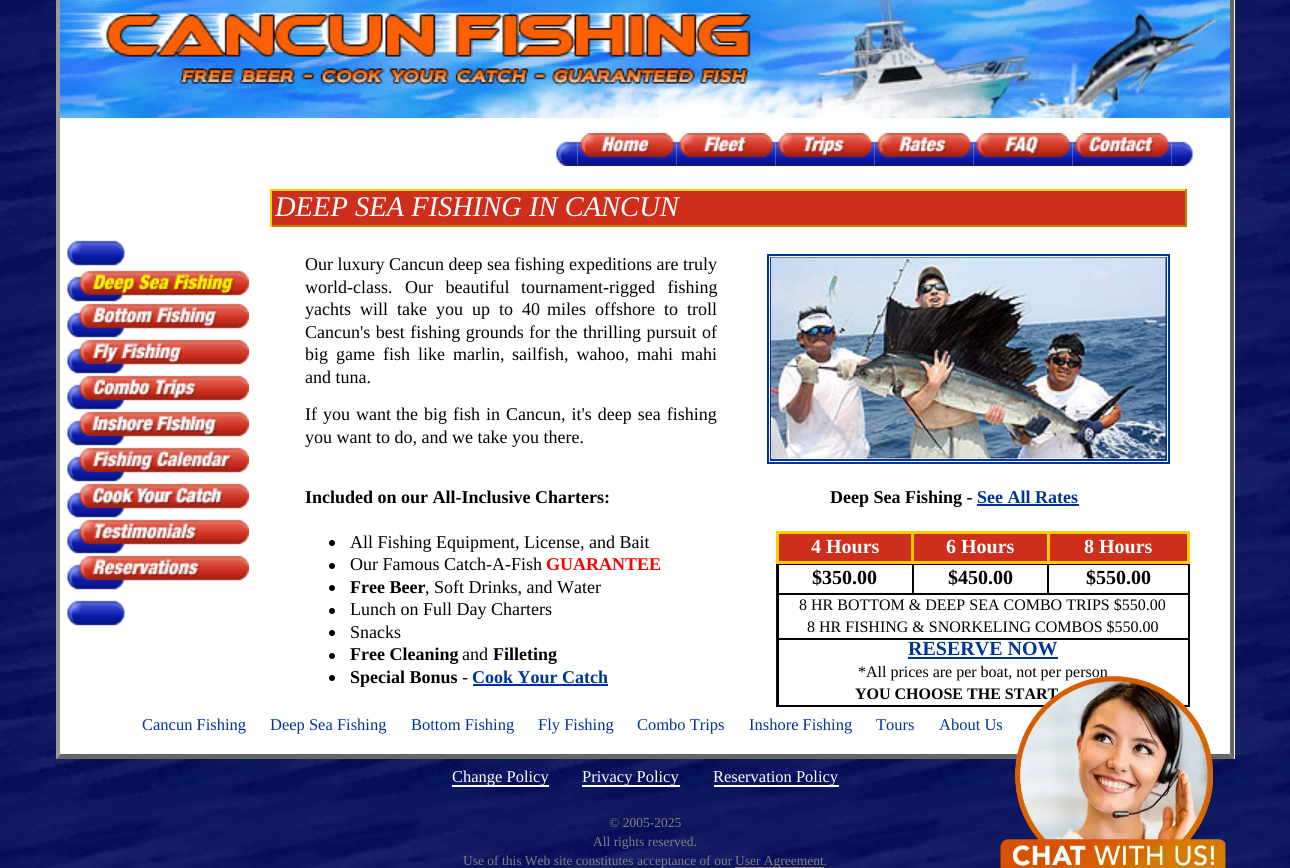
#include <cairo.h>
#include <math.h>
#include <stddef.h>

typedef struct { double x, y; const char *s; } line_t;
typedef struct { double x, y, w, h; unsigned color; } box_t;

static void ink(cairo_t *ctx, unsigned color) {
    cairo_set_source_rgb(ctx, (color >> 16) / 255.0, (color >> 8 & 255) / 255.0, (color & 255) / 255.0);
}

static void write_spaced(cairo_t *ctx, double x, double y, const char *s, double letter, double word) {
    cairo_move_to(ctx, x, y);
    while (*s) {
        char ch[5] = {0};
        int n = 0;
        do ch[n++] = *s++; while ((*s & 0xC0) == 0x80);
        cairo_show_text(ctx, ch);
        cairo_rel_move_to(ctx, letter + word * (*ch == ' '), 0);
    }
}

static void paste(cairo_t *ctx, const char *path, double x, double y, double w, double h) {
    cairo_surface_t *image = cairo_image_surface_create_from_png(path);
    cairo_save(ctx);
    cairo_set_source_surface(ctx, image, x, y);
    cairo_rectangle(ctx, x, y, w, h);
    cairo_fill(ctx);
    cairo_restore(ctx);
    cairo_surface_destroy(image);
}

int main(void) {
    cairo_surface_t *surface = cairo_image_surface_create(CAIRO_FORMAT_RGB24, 1290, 868);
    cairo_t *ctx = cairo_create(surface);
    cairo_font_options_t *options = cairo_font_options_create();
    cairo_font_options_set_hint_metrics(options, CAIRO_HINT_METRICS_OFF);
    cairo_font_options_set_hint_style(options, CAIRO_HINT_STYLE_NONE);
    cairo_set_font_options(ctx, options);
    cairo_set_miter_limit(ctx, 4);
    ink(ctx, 0xFFFFFF);
    cairo_paint(ctx);
    paste(ctx, "media/1.png", 0, 0, 1290, 868);
    ink(ctx, 0xFFFFFF);
    cairo_rectangle(ctx, 56, 0, 1179, 759);
    cairo_fill(ctx);
    ink(ctx, 0x666666);
    cairo_new_path(ctx);
    cairo_move_to(ctx, 1234, -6);
    cairo_line_to(ctx, 1234, 759);
    cairo_line_to(ctx, 1230, 754);
    cairo_line_to(ctx, 1230, -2);
    cairo_close_path(ctx);
    cairo_fill(ctx);
    cairo_new_path(ctx);
    cairo_move_to(ctx, 1234, 759);
    cairo_line_to(ctx, 56, 759);
    cairo_line_to(ctx, 60, 754);
    cairo_line_to(ctx, 1230, 754);
    cairo_close_path(ctx);
    cairo_fill(ctx);
    ink(ctx, 0x999999);
    cairo_new_path(ctx);
    cairo_move_to(ctx, 56, 759);
    cairo_line_to(ctx, 56, -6);
    cairo_line_to(ctx, 60, -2);
    cairo_line_to(ctx, 60, 754);
    cairo_close_path(ctx);
    cairo_fill(ctx);
    paste(ctx, "media/2.png", 60, 0, 1170, 118);
    paste(ctx, "media/3.png", 556, 141, 22, 25);
    paste(ctx, "media/4.png", 577, 133, 100, 33);
    paste(ctx, "media/5.png", 676, 133, 100, 33);
    paste(ctx, "media/6.png", 775, 133, 100, 33);
    paste(ctx, "media/7.png", 874, 133, 100, 33);
    paste(ctx, "media/8.png", 973, 133, 100, 33);
    paste(ctx, "media/9.png", 1072, 133, 100, 33);
    paste(ctx, "media/10.png", 1171, 141, 22, 25);
    paste(ctx, "media/11.png", 67, 240, 58, 26);
    paste(ctx, "media/12.png", 67, 270, 182, 32);
    paste(ctx, "media/13.png", 67, 303, 182, 35);
    paste(ctx, "media/14.png", 67, 339, 182, 35);
    paste(ctx, "media/15.png", 67, 375, 182, 35);
    paste(ctx, "media/16.png", 67, 411, 182, 35);
    paste(ctx, "media/17.png", 67, 447, 182, 35);
    paste(ctx, "media/18.png", 67, 483, 182, 35);
    paste(ctx, "media/19.png", 67, 519, 182, 35);
    paste(ctx, "media/20.png", 67, 555, 182, 35);
    paste(ctx, "media/21.png", 67, 600, 58, 26);
    {
        static const box_t items[] = {
            {272, 191, 913, 34, 0xCE2E1C},
            {270, 189, 917, 2, 0xFFCC00},
            {1185, 189, 2, 38, 0xAA8800},
            {270, 225, 917, 2, 0xAA8800},
            {270, 189, 2, 38, 0xFFCC00},
        };
        for (size_t i = 0; i < sizeof items / sizeof *items; i++) {
            ink(ctx, items[i].color);
            cairo_rectangle(ctx, items[i].x, items[i].y, items[i].w, items[i].h);
            cairo_fill(ctx);
        }
    }
    cairo_select_font_face(ctx, "Liberation Serif", CAIRO_FONT_SLANT_ITALIC, CAIRO_FONT_WEIGHT_NORMAL);
    cairo_set_font_size(ctx, 28.5);
    ink(ctx, 0xFFFFFF);
    cairo_move_to(ctx, 275, 216);
    cairo_show_text(ctx, "DEEP SEA FISHING IN CANCUN");
    cairo_select_font_face(ctx, "Liberation Serif", CAIRO_FONT_SLANT_NORMAL, CAIRO_FONT_WEIGHT_NORMAL);
    cairo_set_font_size(ctx, 18);
    ink(ctx, 0x000000);
    cairo_move_to(ctx, 305, 270);
    cairo_show_text(ctx, "Our luxury Cancun deep sea fishing expeditions are truly");
    write_spaced(ctx, 305, 293, "world-class. Our beautiful", 0, 8);
    write_spaced(ctx, 521, 293, "tournament-rigged fishing", 0, 8);
    write_spaced(ctx, 305, 315, "yachts will take you up to 40", 0, 4.5);
    write_spaced(ctx, 547, 315, "miles offshore to troll", 0, 4.5);
    write_spaced(ctx, 305, 338, "Cancun's best fishing grounds", 0, 1);
    write_spaced(ctx, 529, 338, "for the thrilling pursuit of", 0, 1);
    write_spaced(ctx, 305, 360, "big game fish like marlin,", 0, 3.5);
    write_spaced(ctx, 512, 360, "sailfish, wahoo, mahi mahi", 0, 3.5);
    cairo_move_to(ctx, 305, 383);
    cairo_show_text(ctx, "and tuna.");
    write_spaced(ctx, 305, 420, "If you want", 0, 1.5);
    write_spaced(ctx, 396, 420, "the big fish in Cancun, it's deep sea fishing", 0, 1.5);
    cairo_move_to(ctx, 305, 443);
    cairo_show_text(ctx, "you want to do, and we take you there.");
    cairo_rectangle(ctx, 768, 255, 401, 208);
    ink(ctx, 0x003399);
    cairo_stroke(ctx);
    cairo_rectangle(ctx, 771, 258, 395, 202);
    cairo_stroke(ctx);
    paste(ctx, "media/22.png", 771, 257, 395, 202);
    cairo_select_font_face(ctx, "Liberation Serif", CAIRO_FONT_SLANT_NORMAL, CAIRO_FONT_WEIGHT_BOLD);
    ink(ctx, 0x000000);
    cairo_move_to(ctx, 305, 503);
    cairo_show_text(ctx, "Included on our All-Inclusive Charters:");
    cairo_new_path(ctx);
    cairo_arc(ctx, 332, 543, 3, 0, 2 * M_PI);
    cairo_fill(ctx);
    cairo_select_font_face(ctx, "Liberation Serif", CAIRO_FONT_SLANT_NORMAL, CAIRO_FONT_WEIGHT_NORMAL);
    cairo_move_to(ctx, 350, 548);
    cairo_show_text(ctx, "All Fishing Equipment, License, and Bait");
    cairo_new_path(ctx);
    cairo_arc(ctx, 332, 566, 3, 0, 2 * M_PI);
    cairo_fill(ctx);
    cairo_move_to(ctx, 350, 570);
    cairo_show_text(ctx, "Our Famous Catch-A-Fish");
    cairo_select_font_face(ctx, "Liberation Serif", CAIRO_FONT_SLANT_NORMAL, CAIRO_FONT_WEIGHT_BOLD);
    ink(ctx, 0xFF0000);
    cairo_move_to(ctx, 546, 570);
    cairo_show_text(ctx, "GUARANTEE");
    ink(ctx, 0x000000);
    cairo_new_path(ctx);
    cairo_arc(ctx, 332, 588, 3, 0, 2 * M_PI);
    cairo_fill(ctx);
    cairo_move_to(ctx, 350, 593);
    cairo_show_text(ctx, "Free Beer");
    cairo_select_font_face(ctx, "Liberation Serif", CAIRO_FONT_SLANT_NORMAL, CAIRO_FONT_WEIGHT_NORMAL);
    cairo_move_to(ctx, 425, 593);
    cairo_show_text(ctx, ", Soft Drinks, and Water");
    cairo_new_path(ctx);
    cairo_arc(ctx, 332, 611, 3, 0, 2 * M_PI);
    cairo_fill(ctx);
    cairo_move_to(ctx, 350, 615);
    cairo_show_text(ctx, "Lunch on Full Day Charters");
    cairo_new_path(ctx);
    cairo_arc(ctx, 332, 633, 3, 0, 2 * M_PI);
    cairo_fill(ctx);
    cairo_move_to(ctx, 350, 638);
    cairo_show_text(ctx, "Snacks");
    cairo_new_path(ctx);
    cairo_arc(ctx, 332, 656, 3, 0, 2 * M_PI);
    cairo_fill(ctx);
    cairo_select_font_face(ctx, "Liberation Serif", CAIRO_FONT_SLANT_NORMAL, CAIRO_FONT_WEIGHT_BOLD);
    cairo_move_to(ctx, 350, 660);
    cairo_show_text(ctx, "Free Cleaning");
    cairo_select_font_face(ctx, "Liberation Serif", CAIRO_FONT_SLANT_NORMAL, CAIRO_FONT_WEIGHT_NORMAL);
    cairo_move_to(ctx, 462, 660);
    cairo_show_text(ctx, "and");
    cairo_select_font_face(ctx, "Liberation Serif", CAIRO_FONT_SLANT_NORMAL, CAIRO_FONT_WEIGHT_BOLD);
    cairo_move_to(ctx, 493, 660);
    cairo_show_text(ctx, "Filleting");
    cairo_new_path(ctx);
    cairo_arc(ctx, 332, 678, 3, 0, 2 * M_PI);
    cairo_fill(ctx);
    cairo_move_to(ctx, 350, 683);
    cairo_show_text(ctx, "Special Bonus");
    cairo_select_font_face(ctx, "Liberation Serif", CAIRO_FONT_SLANT_NORMAL, CAIRO_FONT_WEIGHT_NORMAL);
    cairo_move_to(ctx, 462, 683);
    cairo_show_text(ctx, "-");
    cairo_select_font_face(ctx, "Liberation Serif", CAIRO_FONT_SLANT_NORMAL, CAIRO_FONT_WEIGHT_BOLD);
    ink(ctx, 0x003399);
    cairo_move_to(ctx, 472, 683);
    cairo_show_text(ctx, "Cook Your Catch");
    cairo_rectangle(ctx, 473, 684, 135, 2);
    cairo_fill(ctx);
    ink(ctx, 0x000000);
    cairo_move_to(ctx, 830, 503);
    cairo_show_text(ctx, "Deep Sea Fishing -");
    ink(ctx, 0x003399);
    cairo_move_to(ctx, 977, 503);
    cairo_show_text(ctx, "See All Rates");
    {
        static const box_t items[] = {
            {977, 504, 102, 2, 0x003399},
            {776, 564, 1, 143, 0x111111},
            {779, 534, 132, 27, 0xCE2E1C},
            {1047, 531, 143, 3, 0xFFCC00},
            {1047, 564, 143, 1, 0x000000},
            {777, 593, 413, 2, 0x000000},
            {777, 638, 413, 2, 0x000000},
            {1188, 638, 2, 69, 0x000000},
            {1188, 593, 2, 46, 0x000000},
            {1188, 563, 2, 31, 0x000000},
            {1187, 531, 3, 33, 0xFFCC00},
            {1047, 563, 2, 31, 0x000000},
            {1047, 561, 143, 3, 0xFFCC00},
            {1047, 531, 3, 33, 0xFFCC00},
            {911, 531, 139, 3, 0xFFCC00},
            {912, 564, 137, 1, 0x000000},
            {912, 563, 2, 31, 0x000000},
            {911, 561, 139, 3, 0xFFCC00},
            {911, 531, 3, 33, 0xFFCC00},
            {776, 531, 138, 3, 0xFFCC00},
            {777, 564, 137, 1, 0x000000},
            {777, 705, 413, 2, 0x000000},
            {777, 638, 2, 69, 0x000000},
            {777, 593, 2, 46, 0x000000},
            {777, 563, 2, 31, 0x000000},
            {776, 561, 138, 3, 0xFFCC00},
            {776, 531, 3, 33, 0xFFCC00},
        };
        for (size_t i = 0; i < sizeof items / sizeof *items; i++) {
            ink(ctx, items[i].color);
            cairo_rectangle(ctx, items[i].x, items[i].y, items[i].w, items[i].h);
            cairo_fill(ctx);
        }
    }
    cairo_set_font_size(ctx, 20);
    ink(ctx, 0xFFFFFF);
    cairo_move_to(ctx, 811, 553);
    cairo_show_text(ctx, "4 Hours");
    ink(ctx, 0xCE2E1C);
    cairo_rectangle(ctx, 914, 534, 133, 27);
    cairo_fill(ctx);
    ink(ctx, 0xFFFFFF);
    cairo_move_to(ctx, 946, 553);
    cairo_show_text(ctx, "6 Hours");
    ink(ctx, 0xCE2E1C);
    cairo_rectangle(ctx, 1050, 534, 137, 27);
    cairo_fill(ctx);
    ink(ctx, 0xFFFFFF);
    cairo_move_to(ctx, 1084, 553);
    cairo_show_text(ctx, "8 Hours");
    ink(ctx, 0x000000);
    {
        static const line_t items[] = {
            {812, 584, "$350.00"},
            {948, 584, "$450.00"},
            {1086, 584, "$550.00"},
        };
        for (size_t i = 0; i < sizeof items / sizeof *items; i++) {
            cairo_move_to(ctx, items[i].x, items[i].y);
            cairo_show_text(ctx, items[i].s);
        }
    }
    cairo_select_font_face(ctx, "Liberation Serif", CAIRO_FONT_SLANT_NORMAL, CAIRO_FONT_WEIGHT_NORMAL);
    cairo_set_font_size(ctx, 16);
    cairo_move_to(ctx, 799, 610);
    cairo_show_text(ctx, "8 HR BOTTOM & DEEP SEA COMBO TRIPS $550.00");
    cairo_move_to(ctx, 807, 632);
    cairo_show_text(ctx, "8 HR FISHING & SNORKELING COMBOS $550.00");
    cairo_select_font_face(ctx, "Liberation Serif", CAIRO_FONT_SLANT_NORMAL, CAIRO_FONT_WEIGHT_BOLD);
    cairo_set_font_size(ctx, 20);
    ink(ctx, 0x003399);
    cairo_move_to(ctx, 908, 655);
    cairo_show_text(ctx, "RESERVE NOW");
    cairo_rectangle(ctx, 908, 657, 150, 2);
    cairo_fill(ctx);
    cairo_select_font_face(ctx, "Liberation Serif", CAIRO_FONT_SLANT_NORMAL, CAIRO_FONT_WEIGHT_NORMAL);
    cairo_set_font_size(ctx, 16);
    ink(ctx, 0x000000);
    cairo_move_to(ctx, 858, 677);
    cairo_show_text(ctx, "*All prices are per boat, not per person");
    cairo_select_font_face(ctx, "Liberation Serif", CAIRO_FONT_SLANT_NORMAL, CAIRO_FONT_WEIGHT_BOLD);
    cairo_move_to(ctx, 855, 699);
    cairo_show_text(ctx, "YOU CHOOSE THE START");
    cairo_select_font_face(ctx, "Liberation Serif", CAIRO_FONT_SLANT_NORMAL, CAIRO_FONT_WEIGHT_NORMAL);
    cairo_set_font_size(ctx, 16.5);
    ink(ctx, 0x003399);
    {
        static const line_t items[] = {
            {142, 730, "Cancun Fishing"},
            {270, 730, "Deep Sea Fishing"},
            {411, 730, "Bottom Fishing"},
            {538, 730, "Fly Fishing"},
            {637, 730, "Combo Trips"},
            {749, 730, "Inshore Fishing"},
            {876, 730, "Tours"},
            {939, 730, "About Us"},
        };
        for (size_t i = 0; i < sizeof items / sizeof *items; i++) {
            cairo_move_to(ctx, items[i].x, items[i].y);
            cairo_show_text(ctx, items[i].s);
        }
    }
    ink(ctx, 0xFFFFFF);
    cairo_rectangle(ctx, 452, 785, 97, 2);
    cairo_fill(ctx);
    cairo_move_to(ctx, 452, 782);
    cairo_show_text(ctx, "Change Policy");
    cairo_rectangle(ctx, 582, 785, 98, 2);
    cairo_fill(ctx);
    cairo_move_to(ctx, 582, 782);
    cairo_show_text(ctx, "Privacy Policy");
    cairo_rectangle(ctx, 714, 785, 125, 2);
    cairo_fill(ctx);
    cairo_move_to(ctx, 713, 782);
    cairo_show_text(ctx, "Reservation Policy");
    cairo_set_font_size(ctx, 13.5);
    ink(ctx, 0x808080);
    {
        static const line_t items[] = {
            {609, 827, "© 2005-2025"},
            {593, 846, "All rights reserved."},
            {463, 865, "Use of this Web site constitutes acceptance of our"},
        };
        for (size_t i = 0; i < sizeof items / sizeof *items; i++) {
            cairo_move_to(ctx, items[i].x, items[i].y);
            cairo_show_text(ctx, items[i].s);
        }
    }
    cairo_rectangle(ctx, 735, 867, 89, 1);
    cairo_fill(ctx);
    cairo_move_to(ctx, 735, 865);
    cairo_show_text(ctx, "User Agreement.");
    paste(ctx, "media/23.png", 1000, 676, 226, 192);
    cairo_surface_write_to_png(surface, "image.png");
    cairo_font_options_destroy(options);
    cairo_destroy(ctx);
    cairo_surface_destroy(surface);
    return 0;
}
